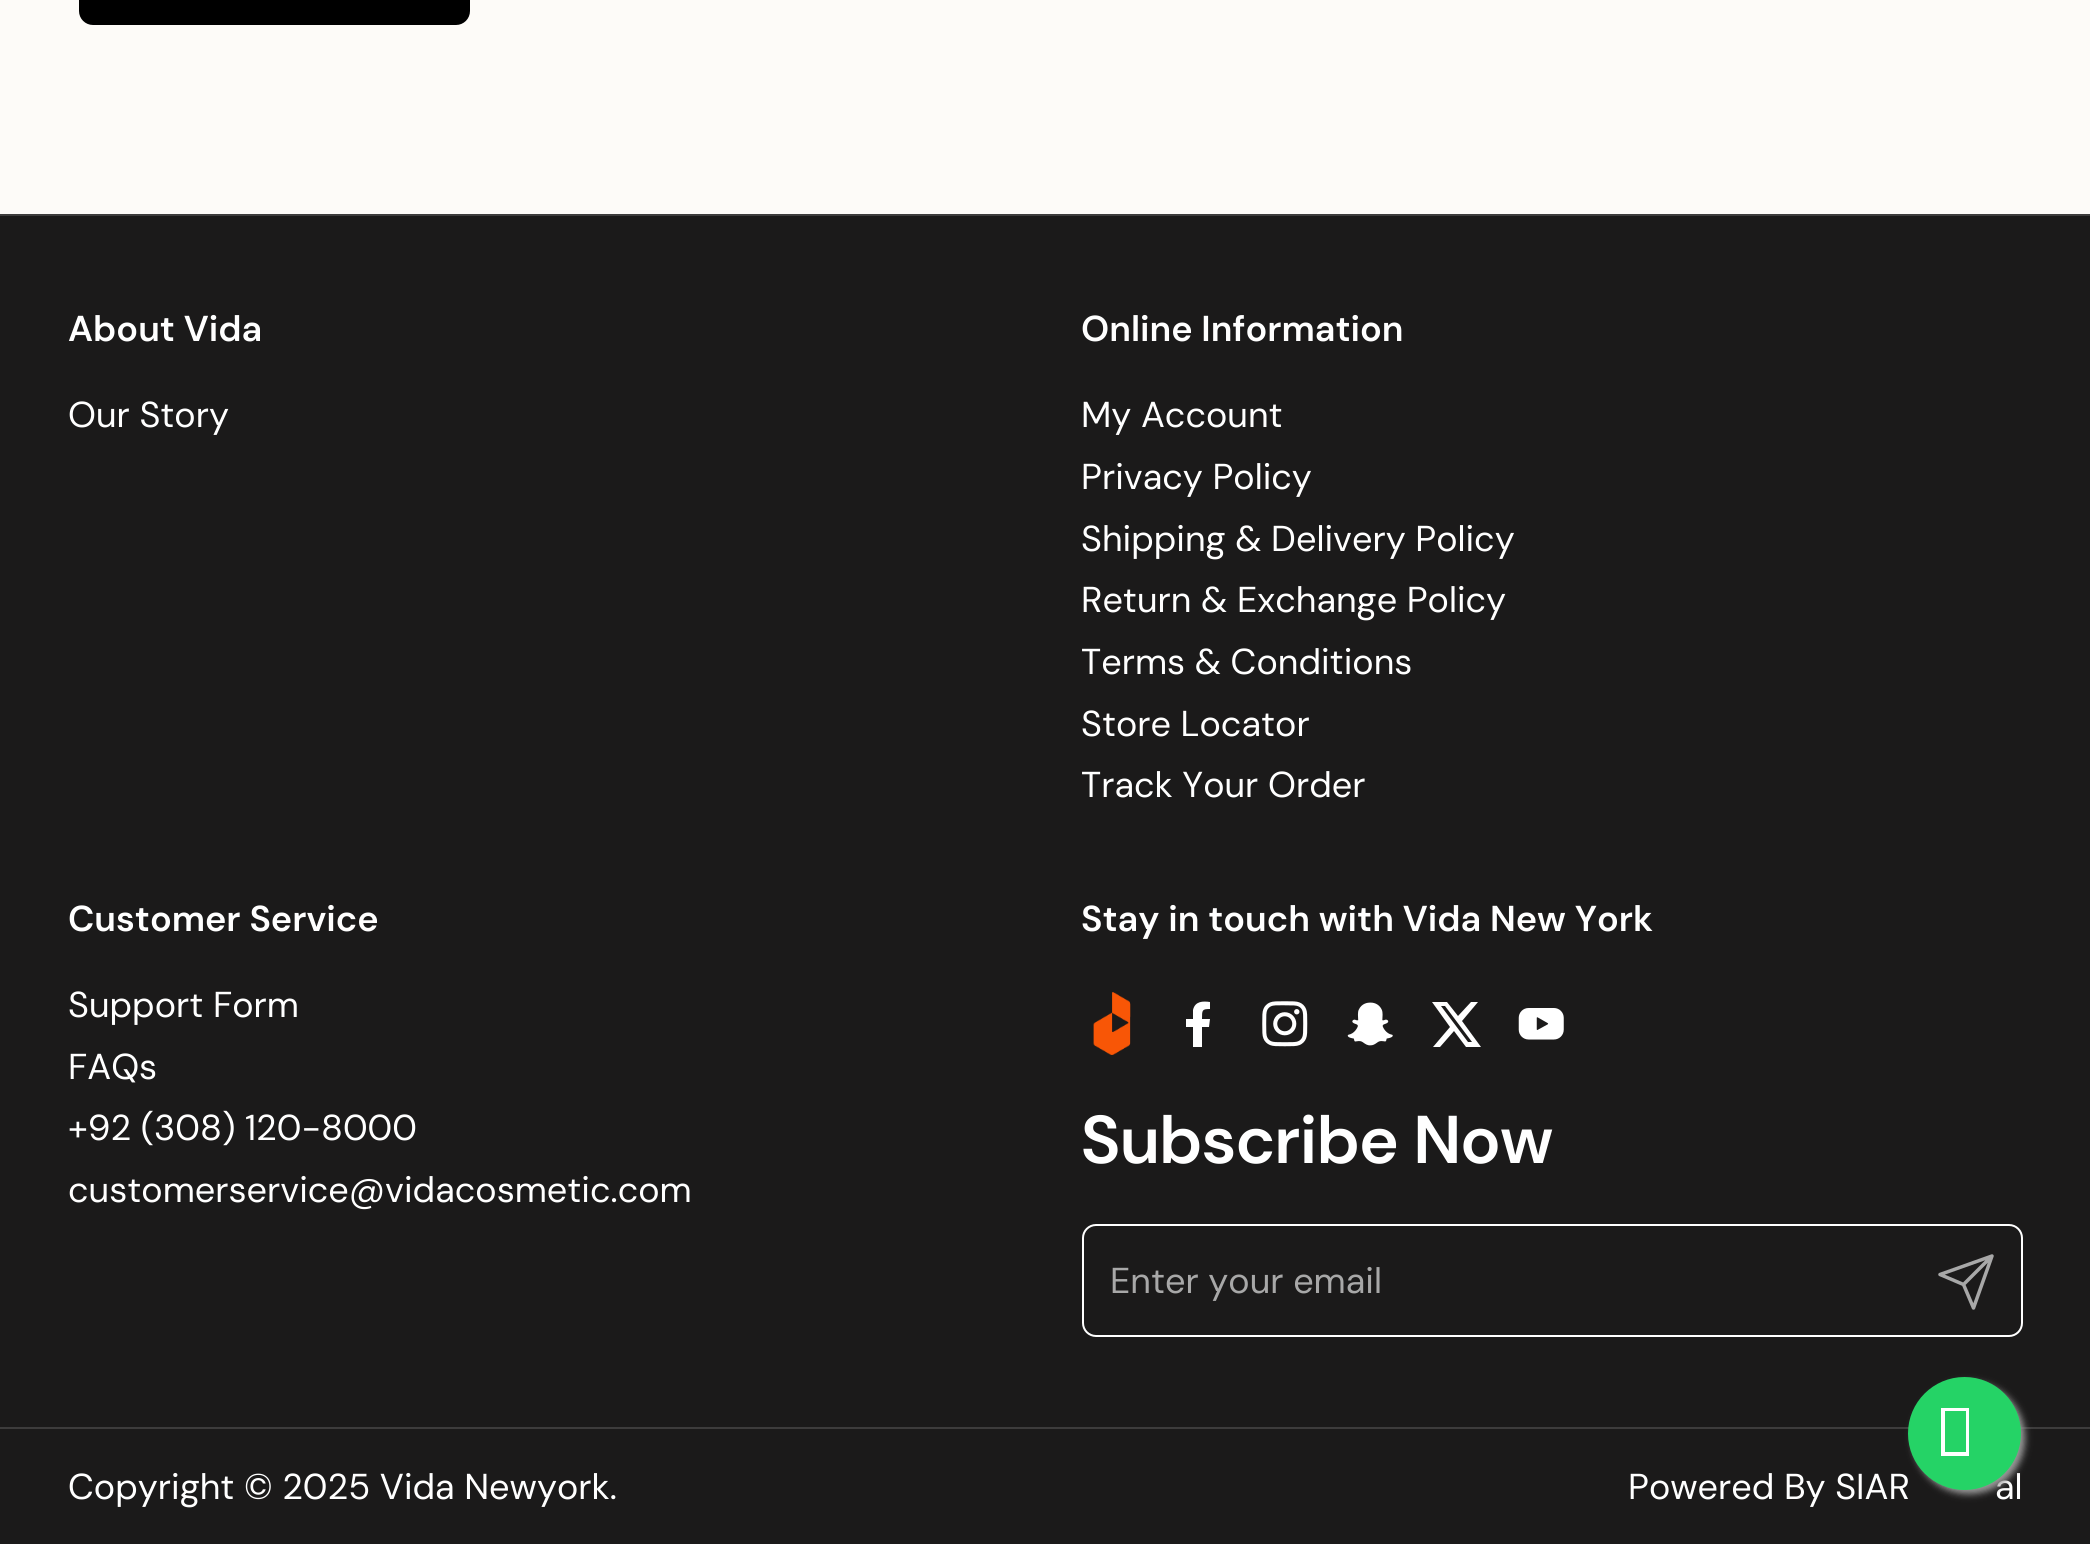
#include <cairo.h>
#include <math.h>
#include <stddef.h>

typedef struct { double x, y; const char *s; } line_t;

static void ink(cairo_t *ctx, unsigned color) {
    cairo_set_source_rgb(ctx, (color >> 16) / 255.0, (color >> 8 & 255) / 255.0, (color & 255) / 255.0);
}

static void round_path(cairo_t *ctx, double x, double y, double w, double h, double r) {
    cairo_new_sub_path(ctx);
    cairo_arc(ctx, x + w - r, y + h - r, r, 0, M_PI / 2);
    cairo_arc(ctx, x + r, y + h - r, r, M_PI / 2, M_PI);
    cairo_arc(ctx, x + r, y + r, r, M_PI, 1.5 * M_PI);
    cairo_arc(ctx, x + w - r, y + r, r, 1.5 * M_PI, 2 * M_PI);
    cairo_close_path(ctx);
}

static void blur_box(cairo_t *ctx, double x, double y, double w, double h, double r, double blur, double alpha) {
    cairo_push_group_with_content(ctx, CAIRO_CONTENT_ALPHA);
    cairo_set_operator(ctx, CAIRO_OPERATOR_SOURCE);
    for (int i = 15; i >= -15 && fmin(w, h) + blur * i / 3 > 0; i -= 2) {
        double e = blur * i / 6;
        cairo_set_source_rgba(ctx, 0, 0, 0, alpha * erfc((i - 1) / 8.5) / 2);
        round_path(ctx, x - e, y - e, w + 2 * e, h + 2 * e, fmax(0, fmin(r + e + blur * .6, fmin(w, h) / 2 + e)));
        cairo_fill(ctx);
    }
    cairo_pattern_t *soft = cairo_pop_group(ctx);
    cairo_mask(ctx, soft);
    cairo_pattern_destroy(soft);
}

static void paste(cairo_t *ctx, const char *path, double x, double y, double w, double h) {
    cairo_surface_t *image = cairo_image_surface_create_from_png(path);
    cairo_save(ctx);
    cairo_set_source_surface(ctx, image, x, y);
    cairo_rectangle(ctx, x, y, w, h);
    cairo_fill(ctx);
    cairo_restore(ctx);
    cairo_surface_destroy(image);
}

int main(void) {
    cairo_surface_t *surface = cairo_image_surface_create(CAIRO_FORMAT_RGB24, 2090, 1544);
    cairo_t *ctx = cairo_create(surface);
    cairo_font_options_t *options = cairo_font_options_create();
    cairo_font_options_set_hint_metrics(options, CAIRO_HINT_METRICS_OFF);
    cairo_font_options_set_hint_style(options, CAIRO_HINT_STYLE_NONE);
    cairo_set_font_options(ctx, options);
    cairo_set_miter_limit(ctx, 4);
    ink(ctx, 0xFDFBF8);
    cairo_paint(ctx);
    ink(ctx, 0x000000);
    round_path(ctx, 80, -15, 389, 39, 13);
    cairo_fill_preserve(ctx);
    cairo_stroke(ctx);
    ink(ctx, 0x1B1A1A);
    cairo_rectangle(ctx, 0, 216, 2090, 1328);
    cairo_fill(ctx);
    ink(ctx, 0x3D3C3C);
    cairo_rectangle(ctx, 0, 214, 2090, 2);
    cairo_fill(ctx);
    cairo_select_font_face(ctx, "DM Sans SemiBold", CAIRO_FONT_SLANT_NORMAL, CAIRO_FONT_WEIGHT_NORMAL);
    cairo_set_font_size(ctx, 36);
    ink(ctx, 0xFFFFFF);
    cairo_move_to(ctx, 68, 341);
    cairo_show_text(ctx, "About Vida");
    cairo_select_font_face(ctx, "DM Sans", CAIRO_FONT_SLANT_NORMAL, CAIRO_FONT_WEIGHT_NORMAL);
    cairo_move_to(ctx, 68, 427);
    cairo_show_text(ctx, "Our Story");
    cairo_select_font_face(ctx, "DM Sans SemiBold", CAIRO_FONT_SLANT_NORMAL, CAIRO_FONT_WEIGHT_NORMAL);
    cairo_move_to(ctx, 1081, 341);
    cairo_show_text(ctx, "Online Information");
    cairo_select_font_face(ctx, "DM Sans", CAIRO_FONT_SLANT_NORMAL, CAIRO_FONT_WEIGHT_NORMAL);
    {
        static const line_t items[] = {
            {1081, 427, "My Account"},
            {1081, 489, "Privacy Policy"},
            {1081, 551, "Shipping & Delivery Policy"},
            {1081, 612, "Return & Exchange Policy"},
            {1081, 674, "Terms & Conditions"},
            {1081, 736, "Store Locator"},
            {1081, 797, "Track Your Order"},
        };
        for (size_t i = 0; i < sizeof items / sizeof *items; i++) {
            cairo_move_to(ctx, items[i].x, items[i].y);
            cairo_show_text(ctx, items[i].s);
        }
    }
    cairo_select_font_face(ctx, "DM Sans SemiBold", CAIRO_FONT_SLANT_NORMAL, CAIRO_FONT_WEIGHT_NORMAL);
    cairo_move_to(ctx, 68, 931);
    cairo_show_text(ctx, "Customer Service");
    cairo_select_font_face(ctx, "DM Sans", CAIRO_FONT_SLANT_NORMAL, CAIRO_FONT_WEIGHT_NORMAL);
    {
        static const line_t items[] = {
            {68, 1017, "Support Form"},
            {68, 1079, "FAQs"},
            {68, 1140, "+92 (308) 120-8000"},
            {68, 1202, "customerservice@vidacosmetic.com"},
        };
        for (size_t i = 0; i < sizeof items / sizeof *items; i++) {
            cairo_move_to(ctx, items[i].x, items[i].y);
            cairo_show_text(ctx, items[i].s);
        }
    }
    cairo_select_font_face(ctx, "DM Sans SemiBold", CAIRO_FONT_SLANT_NORMAL, CAIRO_FONT_WEIGHT_NORMAL);
    cairo_move_to(ctx, 1081, 931);
    cairo_show_text(ctx, "Stay in touch with Vida New York");
    paste(ctx, "media/1.png", 1093, 992, 38, 63);
    cairo_new_path(ctx);
    cairo_move_to(ctx, 1209, 1027);
    cairo_line_to(ctx, 1210, 1019);
    cairo_line_to(ctx, 1202, 1019);
    cairo_curve_to(ctx, 1202, 1010, 1202, 1009, 1210, 1009);
    cairo_line_to(ctx, 1210, 1002);
    cairo_curve_to(ctx, 1203, 1001, 1195, 1001, 1193, 1010);
    cairo_line_to(ctx, 1193, 1019);
    cairo_line_to(ctx, 1186, 1019);
    cairo_line_to(ctx, 1186, 1027);
    cairo_line_to(ctx, 1193, 1027);
    cairo_line_to(ctx, 1193, 1047);
    cairo_line_to(ctx, 1202, 1047);
    cairo_line_to(ctx, 1202, 1027);
    cairo_close_path(ctx);
    cairo_fill(ctx);
    paste(ctx, "media/2.png", 1262, 1001, 46, 46);
    paste(ctx, "media/3.png", 1347, 1002, 46, 44);
    cairo_new_path(ctx);
    cairo_move_to(ctx, 1471, 1002);
    cairo_line_to(ctx, 1478, 1002);
    cairo_line_to(ctx, 1462, 1021);
    cairo_line_to(ctx, 1481, 1047);
    cairo_line_to(ctx, 1466, 1047);
    cairo_line_to(ctx, 1454, 1031);
    cairo_line_to(ctx, 1440, 1047);
    cairo_line_to(ctx, 1433, 1047);
    cairo_line_to(ctx, 1450, 1027);
    cairo_line_to(ctx, 1432, 1002);
    cairo_line_to(ctx, 1447, 1002);
    cairo_line_to(ctx, 1458, 1016);
    cairo_close_path(ctx);
    cairo_move_to(ctx, 1468, 1042);
    cairo_line_to(ctx, 1472, 1042);
    cairo_line_to(ctx, 1445, 1006);
    cairo_line_to(ctx, 1441, 1006);
    cairo_close_path(ctx);
    cairo_fill(ctx);
    paste(ctx, "media/4.png", 1518, 1008, 46, 32);
    cairo_select_font_face(ctx, "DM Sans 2 SemiBold", CAIRO_FONT_SLANT_NORMAL, CAIRO_FONT_WEIGHT_NORMAL);
    cairo_set_font_size(ctx, 67.5);
    cairo_move_to(ctx, 1081, 1163);
    cairo_show_text(ctx, "Subscribe Now");
    round_path(ctx, 1083, 1225, 939, 111, 13);
    cairo_stroke(ctx);
    cairo_select_font_face(ctx, "DM Sans", CAIRO_FONT_SLANT_NORMAL, CAIRO_FONT_WEIGHT_NORMAL);
    cairo_set_font_size(ctx, 36);
    ink(ctx, 0xA8A8A8);
    cairo_move_to(ctx, 1110, 1293);
    cairo_show_text(ctx, "Enter your email");
    cairo_new_path(ctx);
    cairo_move_to(ctx, 1992, 1256);
    cairo_line_to(ctx, 1963.5, 1284.5);
    cairo_move_to(ctx, 1992, 1256);
    cairo_line_to(ctx, 1973.5, 1308);
    cairo_line_to(ctx, 1963.5, 1284.5);
    cairo_line_to(ctx, 1940, 1274.5);
    cairo_close_path(ctx);
    cairo_set_line_width(ctx, 3.5);
    cairo_set_line_cap(ctx, CAIRO_LINE_CAP_ROUND);
    cairo_set_line_join(ctx, CAIRO_LINE_JOIN_ROUND);
    cairo_stroke(ctx);
    ink(ctx, 0x3D3C3C);
    cairo_rectangle(ctx, 0, 1427, 2090, 2);
    cairo_fill(ctx);
    ink(ctx, 0xFFFFFF);
    {
        static const line_t items[] = {
            {68, 1499, "Copyright © 2025 Vida Newyork."},
            {1628, 1499, "Powered By SIAR"},
            {1995, 1499, "al"},
        };
        for (size_t i = 0; i < sizeof items / sizeof *items; i++) {
            cairo_move_to(ctx, items[i].x, items[i].y);
            cairo_show_text(ctx, items[i].s);
        }
    }
    ink(ctx, 0x999999);
    blur_box(ctx, 1913, 1382, 112, 112, 56, 3.5, 1);
    ink(ctx, 0x25D366);
    cairo_arc(ctx, 1964.5, 1433.5, 56.5, 0, 2 * M_PI);
    cairo_fill(ctx);
    ink(ctx, 0xFFFFFF);
    cairo_new_path(ctx);
    cairo_move_to(ctx, 1941, 1456);
    cairo_line_to(ctx, 1941, 1408);
    cairo_line_to(ctx, 1969, 1408);
    cairo_line_to(ctx, 1969, 1456);
    cairo_close_path(ctx);
    cairo_move_to(ctx, 1945, 1452);
    cairo_line_to(ctx, 1966, 1452);
    cairo_line_to(ctx, 1966, 1411);
    cairo_line_to(ctx, 1945, 1411);
    cairo_close_path(ctx);
    cairo_fill(ctx);
    cairo_surface_write_to_png(surface, "image.png");
    cairo_font_options_destroy(options);
    cairo_destroy(ctx);
    cairo_surface_destroy(surface);
    return 0;
}
